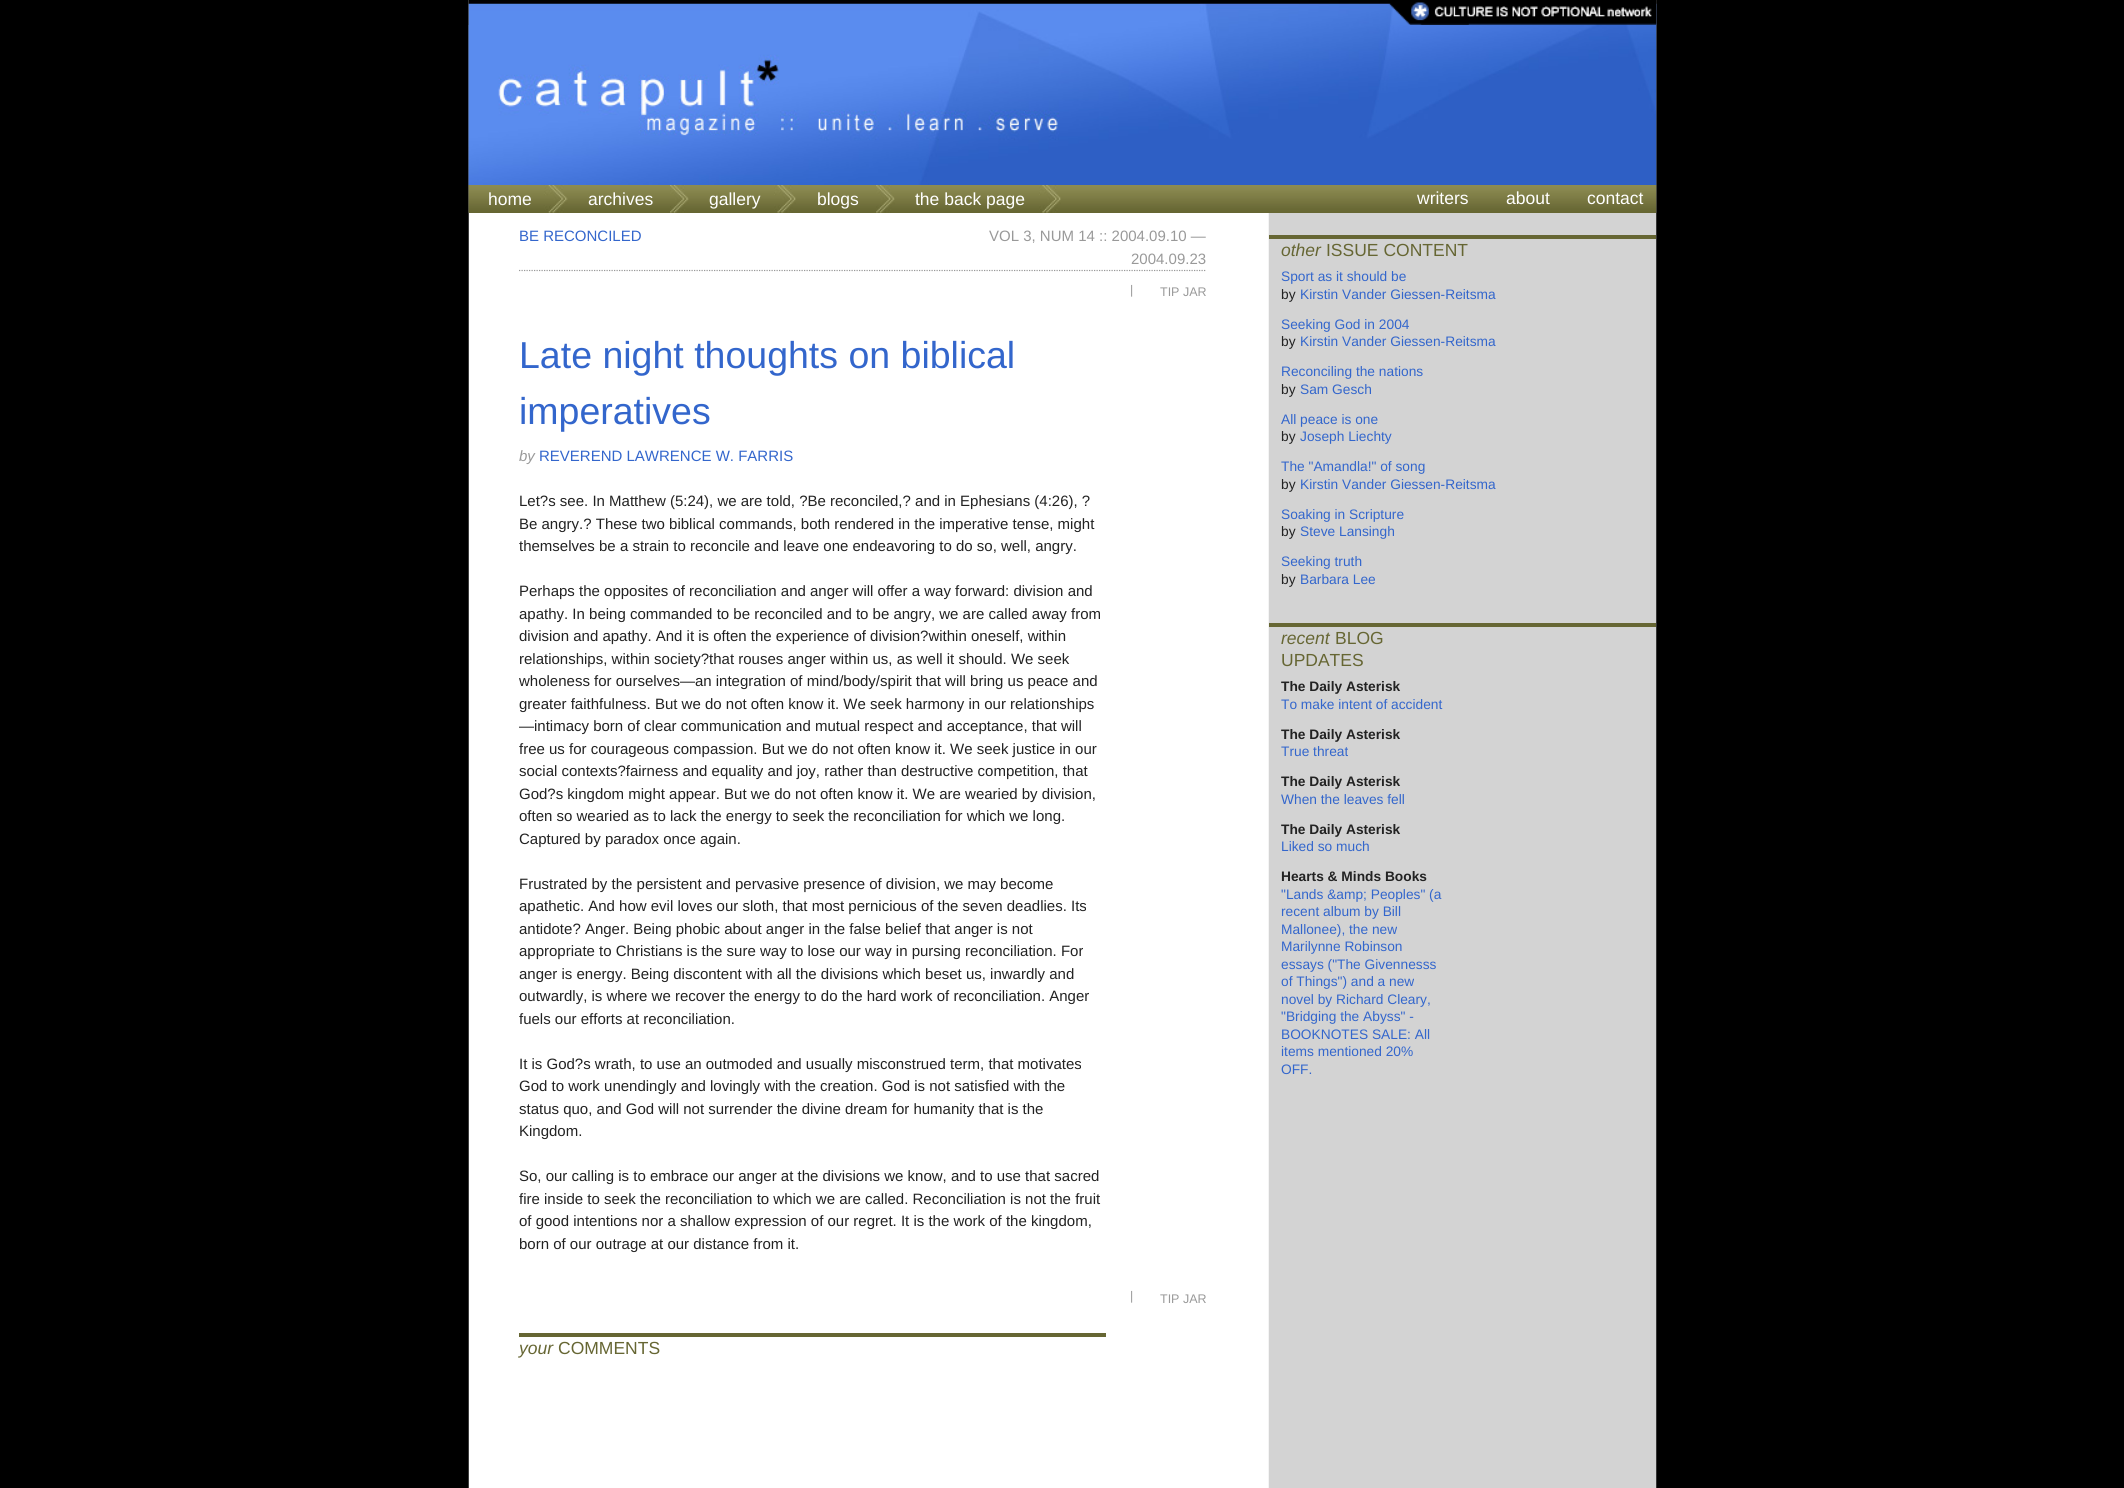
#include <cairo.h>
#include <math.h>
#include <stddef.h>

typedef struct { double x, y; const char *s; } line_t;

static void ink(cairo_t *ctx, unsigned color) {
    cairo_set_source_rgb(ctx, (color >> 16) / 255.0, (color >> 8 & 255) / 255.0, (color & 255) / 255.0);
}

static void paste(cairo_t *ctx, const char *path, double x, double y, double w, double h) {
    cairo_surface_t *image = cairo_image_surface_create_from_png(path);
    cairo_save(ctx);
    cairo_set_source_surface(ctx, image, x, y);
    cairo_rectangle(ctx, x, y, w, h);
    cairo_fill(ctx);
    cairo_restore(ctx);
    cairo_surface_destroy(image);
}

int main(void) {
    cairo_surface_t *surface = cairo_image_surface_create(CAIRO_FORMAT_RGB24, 2124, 1488);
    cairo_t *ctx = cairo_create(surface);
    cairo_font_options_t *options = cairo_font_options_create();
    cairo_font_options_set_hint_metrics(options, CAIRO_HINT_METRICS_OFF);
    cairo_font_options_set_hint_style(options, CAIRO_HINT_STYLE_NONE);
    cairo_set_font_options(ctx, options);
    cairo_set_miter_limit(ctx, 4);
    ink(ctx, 0x000000);
    cairo_paint(ctx);
    paste(ctx, "media/1.png", 468, 0, 1189, 1488);
    paste(ctx, "media/2.png", 468, 0, 1189, 185);
    paste(ctx, "media/3.png", 1388, 0, 269, 25);
    paste(ctx, "media/4.png", 468, 25, 312, 160);
    ink(ctx, 0x666633);
    cairo_rectangle(ctx, 469, 212, 1187, 1);
    cairo_fill(ctx);
    paste(ctx, "media/5.png", 468, 185, 1189, 28);
    paste(ctx, "media/6.png", 468, 185, 100, 28);
    cairo_select_font_face(ctx, "Liberation Sans", CAIRO_FONT_SLANT_NORMAL, CAIRO_FONT_WEIGHT_NORMAL);
    cairo_set_font_size(ctx, 17.5);
    ink(ctx, 0xFFFFFF);
    cairo_move_to(ctx, 488, 205);
    cairo_show_text(ctx, "home");
    paste(ctx, "media/7.png", 670, 185, 19, 28);
    cairo_move_to(ctx, 588, 205);
    cairo_show_text(ctx, "archives");
    paste(ctx, "media/8.png", 774, 185, 22, 28);
    cairo_move_to(ctx, 709, 205);
    cairo_show_text(ctx, "gallery");
    paste(ctx, "media/9.png", 876, 185, 19, 28);
    cairo_move_to(ctx, 817, 205);
    cairo_show_text(ctx, "blogs");
    paste(ctx, "media/10.png", 1039, 185, 22, 28);
    {
        static const line_t items[] = {
            {915, 205, "the back page"},
            {1417, 204, "writers"},
            {1506, 204, "about"},
            {1587, 204, "contact"},
        };
        for (size_t i = 0; i < sizeof items / sizeof *items; i++) {
            cairo_move_to(ctx, items[i].x, items[i].y);
            cairo_show_text(ctx, items[i].s);
        }
    }
    cairo_new_path(ctx);
    cairo_move_to(ctx, 519, 270.5);
    cairo_line_to(ctx, 1206, 270.5);
    ink(ctx, 0x999999);
    cairo_set_line_width(ctx, 1.2);
    cairo_set_dash(ctx, (double[]){1.25, 1.25}, 2, 0);
    cairo_stroke(ctx);
    cairo_set_font_size(ctx, 15);
    ink(ctx, 0x3366CC);
    cairo_move_to(ctx, 519, 241);
    cairo_show_text(ctx, "BE RECONCILED");
    ink(ctx, 0x999999);
    cairo_move_to(ctx, 989, 241);
    cairo_show_text(ctx, "VOL 3, NUM 14 :: 2004.09.10 —");
    cairo_move_to(ctx, 1131, 264);
    cairo_show_text(ctx, "2004.09.23");
    cairo_set_font_size(ctx, 12.5);
    cairo_move_to(ctx, 1130, 294);
    cairo_show_text(ctx, "|");
    cairo_move_to(ctx, 1160, 296);
    cairo_show_text(ctx, "TIP JAR");
    cairo_set_font_size(ctx, 37.5);
    ink(ctx, 0x3366CC);
    cairo_move_to(ctx, 519, 368);
    cairo_show_text(ctx, "Late night thoughts on biblical");
    cairo_move_to(ctx, 519, 424);
    cairo_show_text(ctx, "imperatives");
    cairo_select_font_face(ctx, "Liberation Sans", CAIRO_FONT_SLANT_ITALIC, CAIRO_FONT_WEIGHT_NORMAL);
    cairo_set_font_size(ctx, 15);
    ink(ctx, 0x999999);
    cairo_move_to(ctx, 519, 461);
    cairo_show_text(ctx, "by");
    cairo_select_font_face(ctx, "Liberation Sans", CAIRO_FONT_SLANT_NORMAL, CAIRO_FONT_WEIGHT_NORMAL);
    ink(ctx, 0x3366CC);
    cairo_move_to(ctx, 539, 461);
    cairo_show_text(ctx, "REVEREND LAWRENCE W. FARRIS");
    ink(ctx, 0x222222);
    {
        static const line_t items[] = {
            {519, 506, "Let?s see. In Matthew (5:24), we are told, ?Be reconciled,? and in Ephesians (4:26), ?"},
            {519, 529, "Be angry.? These two biblical commands, both rendered in the imperative tense, might"},
            {519, 551, "themselves be a strain to reconcile and leave one endeavoring to do so, well, angry."},
            {519, 596, "Perhaps the opposites of reconciliation and anger will offer a way forward: division and"},
            {519, 619, "apathy. In being commanded to be reconciled and to be angry, we are called away from"},
            {519, 641, "division and apathy. And it is often the experience of division?within oneself, within"},
            {519, 664, "relationships, within society?that rouses anger within us, as well it should. We seek"},
            {519, 686, "wholeness for ourselves—an integration of mind/body/spirit that will bring us peace and"},
            {519, 709, "greater faithfulness. But we do not often know it. We seek harmony in our relationships"},
            {519, 731, "—intimacy born of clear communication and mutual respect and acceptance, that will"},
            {519, 754, "free us for courageous compassion. But we do not often know it. We seek justice in our"},
            {519, 776, "social contexts?fairness and equality and joy, rather than destructive competition, that"},
            {519, 799, "God?s kingdom might appear. But we do not often know it. We are wearied by division,"},
            {519, 821, "often so wearied as to lack the energy to seek the reconciliation for which we long."},
            {519, 844, "Captured by paradox once again."},
            {519, 889, "Frustrated by the persistent and pervasive presence of division, we may become"},
            {519, 911, "apathetic. And how evil loves our sloth, that most pernicious of the seven deadlies. Its"},
            {519, 934, "antidote? Anger. Being phobic about anger in the false belief that anger is not"},
            {519, 956, "appropriate to Christians is the sure way to lose our way in pursing reconciliation. For"},
            {519, 979, "anger is energy. Being discontent with all the divisions which beset us, inwardly and"},
            {519, 1001, "outwardly, is where we recover the energy to do the hard work of reconciliation. Anger"},
            {519, 1024, "fuels our efforts at reconciliation."},
            {519, 1069, "It is God?s wrath, to use an outmoded and usually misconstrued term, that motivates"},
            {519, 1091, "God to work unendingly and lovingly with the creation. God is not satisfied with the"},
            {519, 1114, "status quo, and God will not surrender the divine dream for humanity that is the"},
            {519, 1136, "Kingdom."},
            {519, 1181, "So, our calling is to embrace our anger at the divisions we know, and to use that sacred"},
            {519, 1204, "fire inside to seek the reconciliation to which we are called. Reconciliation is not the fruit"},
            {519, 1226, "of good intentions nor a shallow expression of our regret. It is the work of the kingdom,"},
            {519, 1249, "born of our outrage at our distance from it."},
        };
        for (size_t i = 0; i < sizeof items / sizeof *items; i++) {
            cairo_move_to(ctx, items[i].x, items[i].y);
            cairo_show_text(ctx, items[i].s);
        }
    }
    cairo_set_font_size(ctx, 12.5);
    ink(ctx, 0x999999);
    cairo_move_to(ctx, 1130, 1300);
    cairo_show_text(ctx, "|");
    cairo_move_to(ctx, 1160, 1303);
    cairo_show_text(ctx, "TIP JAR");
    ink(ctx, 0x666633);
    cairo_rectangle(ctx, 519, 1333, 587, 4);
    cairo_fill(ctx);
    cairo_select_font_face(ctx, "Liberation Sans", CAIRO_FONT_SLANT_ITALIC, CAIRO_FONT_WEIGHT_NORMAL);
    cairo_set_font_size(ctx, 17.5);
    cairo_move_to(ctx, 519, 1354);
    cairo_show_text(ctx, "your");
    cairo_select_font_face(ctx, "Liberation Sans", CAIRO_FONT_SLANT_NORMAL, CAIRO_FONT_WEIGHT_NORMAL);
    cairo_move_to(ctx, 558, 1354);
    cairo_show_text(ctx, "COMMENTS");
    cairo_rectangle(ctx, 1269, 235, 387, 4);
    cairo_fill(ctx);
    cairo_select_font_face(ctx, "Liberation Sans", CAIRO_FONT_SLANT_ITALIC, CAIRO_FONT_WEIGHT_NORMAL);
    cairo_move_to(ctx, 1281, 256);
    cairo_show_text(ctx, "other");
    cairo_select_font_face(ctx, "Liberation Sans", CAIRO_FONT_SLANT_NORMAL, CAIRO_FONT_WEIGHT_NORMAL);
    cairo_move_to(ctx, 1326, 256);
    cairo_show_text(ctx, "ISSUE CONTENT");
    cairo_set_font_size(ctx, 13.75);
    ink(ctx, 0x3366CC);
    cairo_move_to(ctx, 1281, 281);
    cairo_show_text(ctx, "Sport as it should be");
    ink(ctx, 0x222222);
    cairo_move_to(ctx, 1281, 299);
    cairo_show_text(ctx, "by");
    ink(ctx, 0x3366CC);
    cairo_move_to(ctx, 1300, 299);
    cairo_show_text(ctx, "Kirstin Vander Giessen-Reitsma");
    cairo_move_to(ctx, 1281, 329);
    cairo_show_text(ctx, "Seeking God in 2004");
    ink(ctx, 0x222222);
    cairo_move_to(ctx, 1281, 346);
    cairo_show_text(ctx, "by");
    ink(ctx, 0x3366CC);
    cairo_move_to(ctx, 1300, 346);
    cairo_show_text(ctx, "Kirstin Vander Giessen-Reitsma");
    cairo_move_to(ctx, 1281, 376);
    cairo_show_text(ctx, "Reconciling the nations");
    ink(ctx, 0x222222);
    cairo_move_to(ctx, 1281, 394);
    cairo_show_text(ctx, "by");
    ink(ctx, 0x3366CC);
    cairo_move_to(ctx, 1300, 394);
    cairo_show_text(ctx, "Sam Gesch");
    cairo_move_to(ctx, 1281, 424);
    cairo_show_text(ctx, "All peace is one");
    ink(ctx, 0x222222);
    cairo_move_to(ctx, 1281, 441);
    cairo_show_text(ctx, "by");
    ink(ctx, 0x3366CC);
    cairo_move_to(ctx, 1300, 441);
    cairo_show_text(ctx, "Joseph Liechty");
    cairo_move_to(ctx, 1281, 471);
    cairo_show_text(ctx, "The \"Amandla!\" of song");
    ink(ctx, 0x222222);
    cairo_move_to(ctx, 1281, 489);
    cairo_show_text(ctx, "by");
    ink(ctx, 0x3366CC);
    cairo_move_to(ctx, 1300, 489);
    cairo_show_text(ctx, "Kirstin Vander Giessen-Reitsma");
    cairo_move_to(ctx, 1281, 519);
    cairo_show_text(ctx, "Soaking in Scripture");
    ink(ctx, 0x222222);
    cairo_move_to(ctx, 1281, 536);
    cairo_show_text(ctx, "by");
    ink(ctx, 0x3366CC);
    cairo_move_to(ctx, 1300, 536);
    cairo_show_text(ctx, "Steve Lansingh");
    cairo_move_to(ctx, 1281, 566);
    cairo_show_text(ctx, "Seeking truth");
    ink(ctx, 0x222222);
    cairo_move_to(ctx, 1281, 584);
    cairo_show_text(ctx, "by");
    ink(ctx, 0x3366CC);
    cairo_move_to(ctx, 1300, 584);
    cairo_show_text(ctx, "Barbara Lee");
    ink(ctx, 0x666633);
    cairo_rectangle(ctx, 1269, 623, 387, 4);
    cairo_fill(ctx);
    cairo_select_font_face(ctx, "Liberation Sans", CAIRO_FONT_SLANT_ITALIC, CAIRO_FONT_WEIGHT_NORMAL);
    cairo_set_font_size(ctx, 17.5);
    cairo_move_to(ctx, 1281, 644);
    cairo_show_text(ctx, "recent");
    cairo_select_font_face(ctx, "Liberation Sans", CAIRO_FONT_SLANT_NORMAL, CAIRO_FONT_WEIGHT_NORMAL);
    cairo_move_to(ctx, 1335, 644);
    cairo_show_text(ctx, "BLOG");
    cairo_move_to(ctx, 1281, 666);
    cairo_show_text(ctx, "UPDATES");
    cairo_select_font_face(ctx, "Liberation Sans", CAIRO_FONT_SLANT_NORMAL, CAIRO_FONT_WEIGHT_BOLD);
    cairo_set_font_size(ctx, 13.75);
    ink(ctx, 0x222222);
    cairo_move_to(ctx, 1281, 691);
    cairo_show_text(ctx, "The Daily Asterisk");
    cairo_select_font_face(ctx, "Liberation Sans", CAIRO_FONT_SLANT_NORMAL, CAIRO_FONT_WEIGHT_NORMAL);
    ink(ctx, 0x3366CC);
    cairo_move_to(ctx, 1281, 709);
    cairo_show_text(ctx, "To make intent of accident");
    cairo_select_font_face(ctx, "Liberation Sans", CAIRO_FONT_SLANT_NORMAL, CAIRO_FONT_WEIGHT_BOLD);
    ink(ctx, 0x222222);
    cairo_move_to(ctx, 1281, 739);
    cairo_show_text(ctx, "The Daily Asterisk");
    cairo_select_font_face(ctx, "Liberation Sans", CAIRO_FONT_SLANT_NORMAL, CAIRO_FONT_WEIGHT_NORMAL);
    ink(ctx, 0x3366CC);
    cairo_move_to(ctx, 1281, 756);
    cairo_show_text(ctx, "True threat");
    cairo_select_font_face(ctx, "Liberation Sans", CAIRO_FONT_SLANT_NORMAL, CAIRO_FONT_WEIGHT_BOLD);
    ink(ctx, 0x222222);
    cairo_move_to(ctx, 1281, 786);
    cairo_show_text(ctx, "The Daily Asterisk");
    cairo_select_font_face(ctx, "Liberation Sans", CAIRO_FONT_SLANT_NORMAL, CAIRO_FONT_WEIGHT_NORMAL);
    ink(ctx, 0x3366CC);
    cairo_move_to(ctx, 1281, 804);
    cairo_show_text(ctx, "When the leaves fell");
    cairo_select_font_face(ctx, "Liberation Sans", CAIRO_FONT_SLANT_NORMAL, CAIRO_FONT_WEIGHT_BOLD);
    ink(ctx, 0x222222);
    cairo_move_to(ctx, 1281, 834);
    cairo_show_text(ctx, "The Daily Asterisk");
    cairo_select_font_face(ctx, "Liberation Sans", CAIRO_FONT_SLANT_NORMAL, CAIRO_FONT_WEIGHT_NORMAL);
    ink(ctx, 0x3366CC);
    cairo_move_to(ctx, 1281, 851);
    cairo_show_text(ctx, "Liked so much");
    cairo_select_font_face(ctx, "Liberation Sans", CAIRO_FONT_SLANT_NORMAL, CAIRO_FONT_WEIGHT_BOLD);
    ink(ctx, 0x222222);
    cairo_move_to(ctx, 1281, 881);
    cairo_show_text(ctx, "Hearts & Minds Books");
    cairo_select_font_face(ctx, "Liberation Sans", CAIRO_FONT_SLANT_NORMAL, CAIRO_FONT_WEIGHT_NORMAL);
    ink(ctx, 0x3366CC);
    {
        static const line_t items[] = {
            {1281, 899, "\"Lands &amp; Peoples\" (a"},
            {1281, 916, "recent album by Bill"},
            {1281, 934, "Mallonee), the new"},
            {1281, 951, "Marilynne Robinson"},
            {1281, 969, "essays (\"The Givennesss"},
            {1281, 986, "of Things\") and a new"},
            {1281, 1004, "novel by Richard Cleary,"},
            {1281, 1021, "\"Bridging the Abyss\" -"},
            {1281, 1039, "BOOKNOTES SALE: All"},
            {1281, 1056, "items mentioned 20%"},
            {1281, 1074, "OFF."},
        };
        for (size_t i = 0; i < sizeof items / sizeof *items; i++) {
            cairo_move_to(ctx, items[i].x, items[i].y);
            cairo_show_text(ctx, items[i].s);
        }
    }
    cairo_surface_write_to_png(surface, "image.png");
    cairo_font_options_destroy(options);
    cairo_destroy(ctx);
    cairo_surface_destroy(surface);
    return 0;
}
